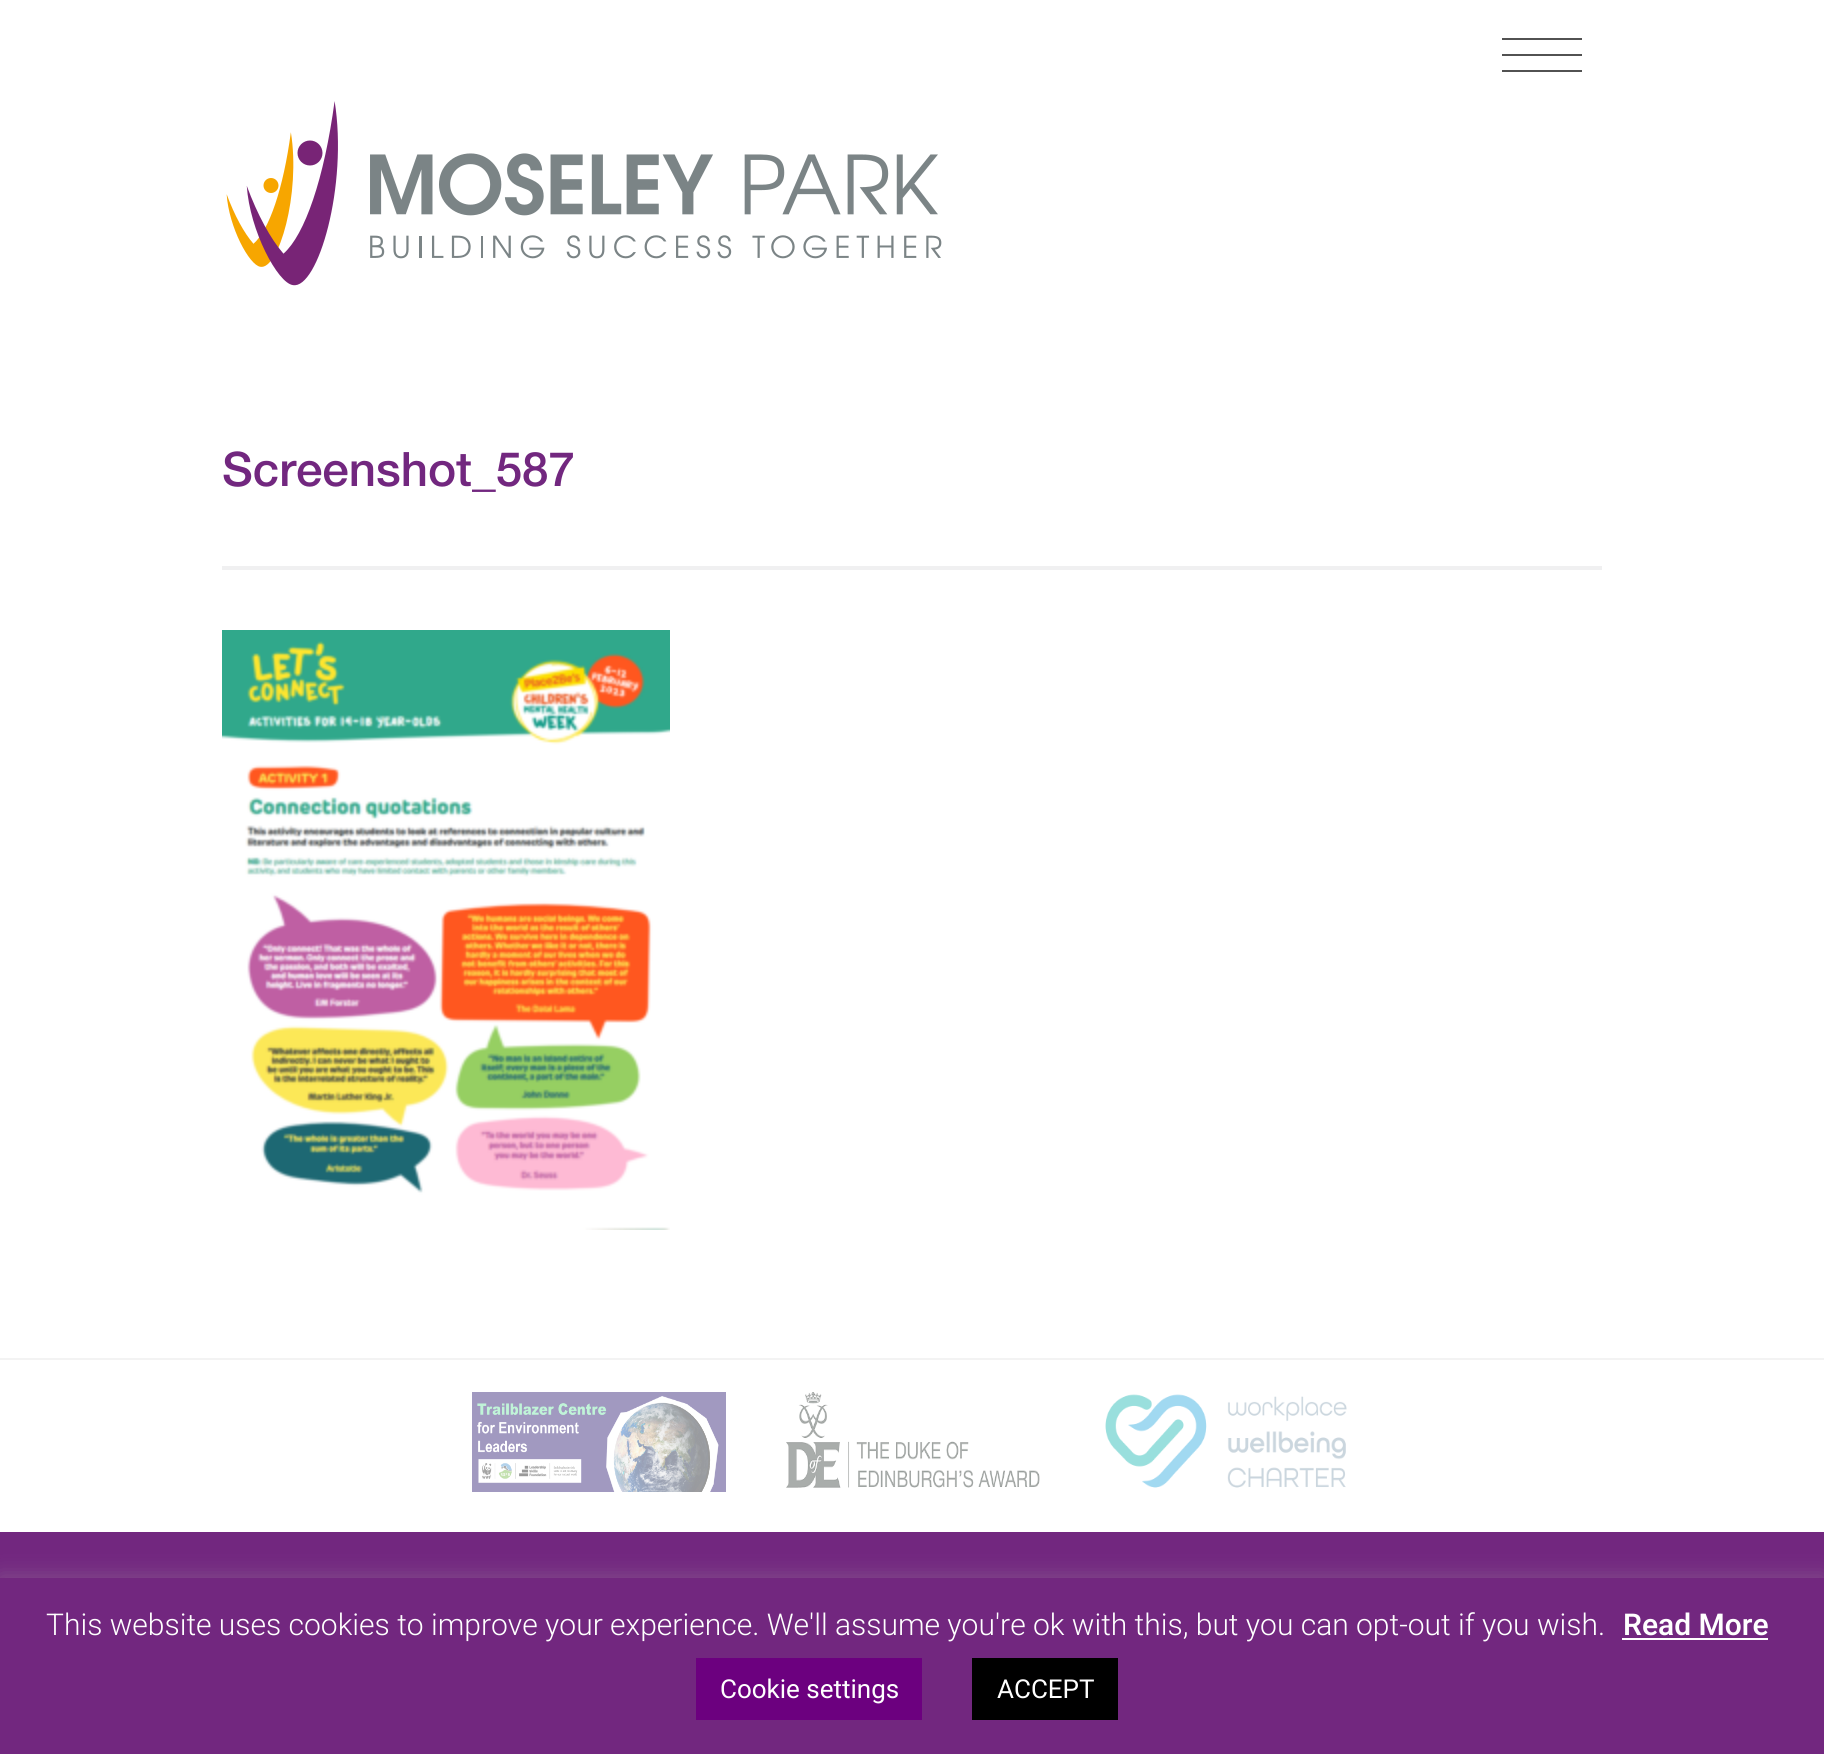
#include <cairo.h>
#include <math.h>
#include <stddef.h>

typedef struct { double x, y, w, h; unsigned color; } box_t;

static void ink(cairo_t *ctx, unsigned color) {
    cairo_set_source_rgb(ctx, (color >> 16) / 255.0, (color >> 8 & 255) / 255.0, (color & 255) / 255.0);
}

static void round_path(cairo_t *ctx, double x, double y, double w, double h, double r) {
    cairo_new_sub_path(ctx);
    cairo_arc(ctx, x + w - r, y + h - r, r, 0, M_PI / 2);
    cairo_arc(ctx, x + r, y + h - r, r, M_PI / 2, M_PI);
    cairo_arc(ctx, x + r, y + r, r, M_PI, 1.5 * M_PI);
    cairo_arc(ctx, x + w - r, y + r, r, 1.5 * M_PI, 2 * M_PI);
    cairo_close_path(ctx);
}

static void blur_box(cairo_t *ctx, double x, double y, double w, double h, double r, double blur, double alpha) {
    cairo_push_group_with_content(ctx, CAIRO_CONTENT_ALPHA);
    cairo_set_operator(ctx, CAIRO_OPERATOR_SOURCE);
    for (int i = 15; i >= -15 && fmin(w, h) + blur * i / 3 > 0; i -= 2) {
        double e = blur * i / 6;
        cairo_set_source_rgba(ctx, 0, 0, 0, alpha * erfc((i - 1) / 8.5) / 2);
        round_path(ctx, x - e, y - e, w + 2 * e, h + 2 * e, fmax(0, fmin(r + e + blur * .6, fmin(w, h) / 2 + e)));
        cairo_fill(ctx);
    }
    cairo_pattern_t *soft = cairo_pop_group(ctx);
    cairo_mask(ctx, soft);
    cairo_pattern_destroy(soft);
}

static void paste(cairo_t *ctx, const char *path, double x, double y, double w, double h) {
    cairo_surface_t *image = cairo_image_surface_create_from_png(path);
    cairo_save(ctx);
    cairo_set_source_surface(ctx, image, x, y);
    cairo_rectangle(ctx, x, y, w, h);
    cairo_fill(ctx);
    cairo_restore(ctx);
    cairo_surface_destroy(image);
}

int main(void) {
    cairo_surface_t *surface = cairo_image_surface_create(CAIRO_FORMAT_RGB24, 1824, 1754);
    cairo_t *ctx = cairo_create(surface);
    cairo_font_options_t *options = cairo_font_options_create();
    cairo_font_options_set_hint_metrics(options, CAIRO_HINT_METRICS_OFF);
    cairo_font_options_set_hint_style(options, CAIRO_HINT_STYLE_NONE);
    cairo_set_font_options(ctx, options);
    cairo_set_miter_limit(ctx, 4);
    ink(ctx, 0xFFFFFF);
    cairo_paint(ctx);
    {
        static const box_t items[] = {
            {1502, 54, 80, 2, 0x525252},
            {1502, 38, 80, 2, 0x525252},
            {1502, 70, 80, 2, 0x525252},
        };
        for (size_t i = 0; i < sizeof items / sizeof *items; i++) {
            ink(ctx, items[i].color);
            cairo_rectangle(ctx, items[i].x, items[i].y, items[i].w, items[i].h);
            cairo_fill(ctx);
        }
    }
    paste(ctx, "media/1.png", 226, 101, 716, 185);
    ink(ctx, 0xF0F0F1);
    cairo_rectangle(ctx, 222, 566, 1380, 4);
    cairo_fill(ctx);
    cairo_select_font_face(ctx, "Helvetica Neue Medium", CAIRO_FONT_SLANT_NORMAL, CAIRO_FONT_WEIGHT_NORMAL);
    cairo_set_font_size(ctx, 47.5);
    ink(ctx, 0x72277F);
    cairo_move_to(ctx, 222, 486);
    cairo_show_text(ctx, "Screenshot_587");
    paste(ctx, "media/2.png", 222, 630, 448, 600);
    ink(ctx, 0xF3F3F3);
    cairo_rectangle(ctx, 0, 1358, 1824, 2);
    cairo_fill(ctx);
    paste(ctx, "media/3.png", 472, 1392, 254, 100);
    paste(ctx, "media/4.png", 786, 1392, 254, 96);
    paste(ctx, "media/5.png", 1105, 1394, 242, 94);
    ink(ctx, 0x72277F);
    cairo_rectangle(ctx, 0, 1532, 1824, 46);
    cairo_fill(ctx);
    ink(ctx, 0xACABAB);
    blur_box(ctx, 0, 1576, 1824, 176, 0, 10, 0.3);
    ink(ctx, 0x72277F);
    cairo_rectangle(ctx, 0, 1578, 1824, 176);
    cairo_fill(ctx);
    cairo_select_font_face(ctx, "Roboto Light", CAIRO_FONT_SLANT_NORMAL, CAIRO_FONT_WEIGHT_NORMAL);
    cairo_set_font_size(ctx, 30);
    ink(ctx, 0xFFFFFF);
    cairo_move_to(ctx, 46, 1635);
    cairo_show_text(ctx, "This website uses cookies to improve your experience. We'll assume you're ok with this, but you can opt-out if you wish.");
    cairo_select_font_face(ctx, "Roboto Medium", CAIRO_FONT_SLANT_NORMAL, CAIRO_FONT_WEIGHT_NORMAL);
    cairo_move_to(ctx, 1623, 1635);
    cairo_show_text(ctx, "Read More");
    cairo_rectangle(ctx, 1622, 1638, 146, 2);
    cairo_fill(ctx);
    ink(ctx, 0x6C007F);
    cairo_rectangle(ctx, 696, 1658, 226, 62);
    cairo_fill(ctx);
    cairo_select_font_face(ctx, "Roboto", CAIRO_FONT_SLANT_NORMAL, CAIRO_FONT_WEIGHT_NORMAL);
    cairo_set_font_size(ctx, 26);
    ink(ctx, 0xFFFFFF);
    cairo_move_to(ctx, 720, 1698);
    cairo_show_text(ctx, "Cookie settings");
    ink(ctx, 0x000000);
    cairo_rectangle(ctx, 972, 1658, 146, 62);
    cairo_fill(ctx);
    ink(ctx, 0xFFFFFF);
    cairo_move_to(ctx, 997, 1698);
    cairo_show_text(ctx, "ACCEPT");
    cairo_surface_write_to_png(surface, "image.png");
    cairo_font_options_destroy(options);
    cairo_destroy(ctx);
    cairo_surface_destroy(surface);
    return 0;
}
